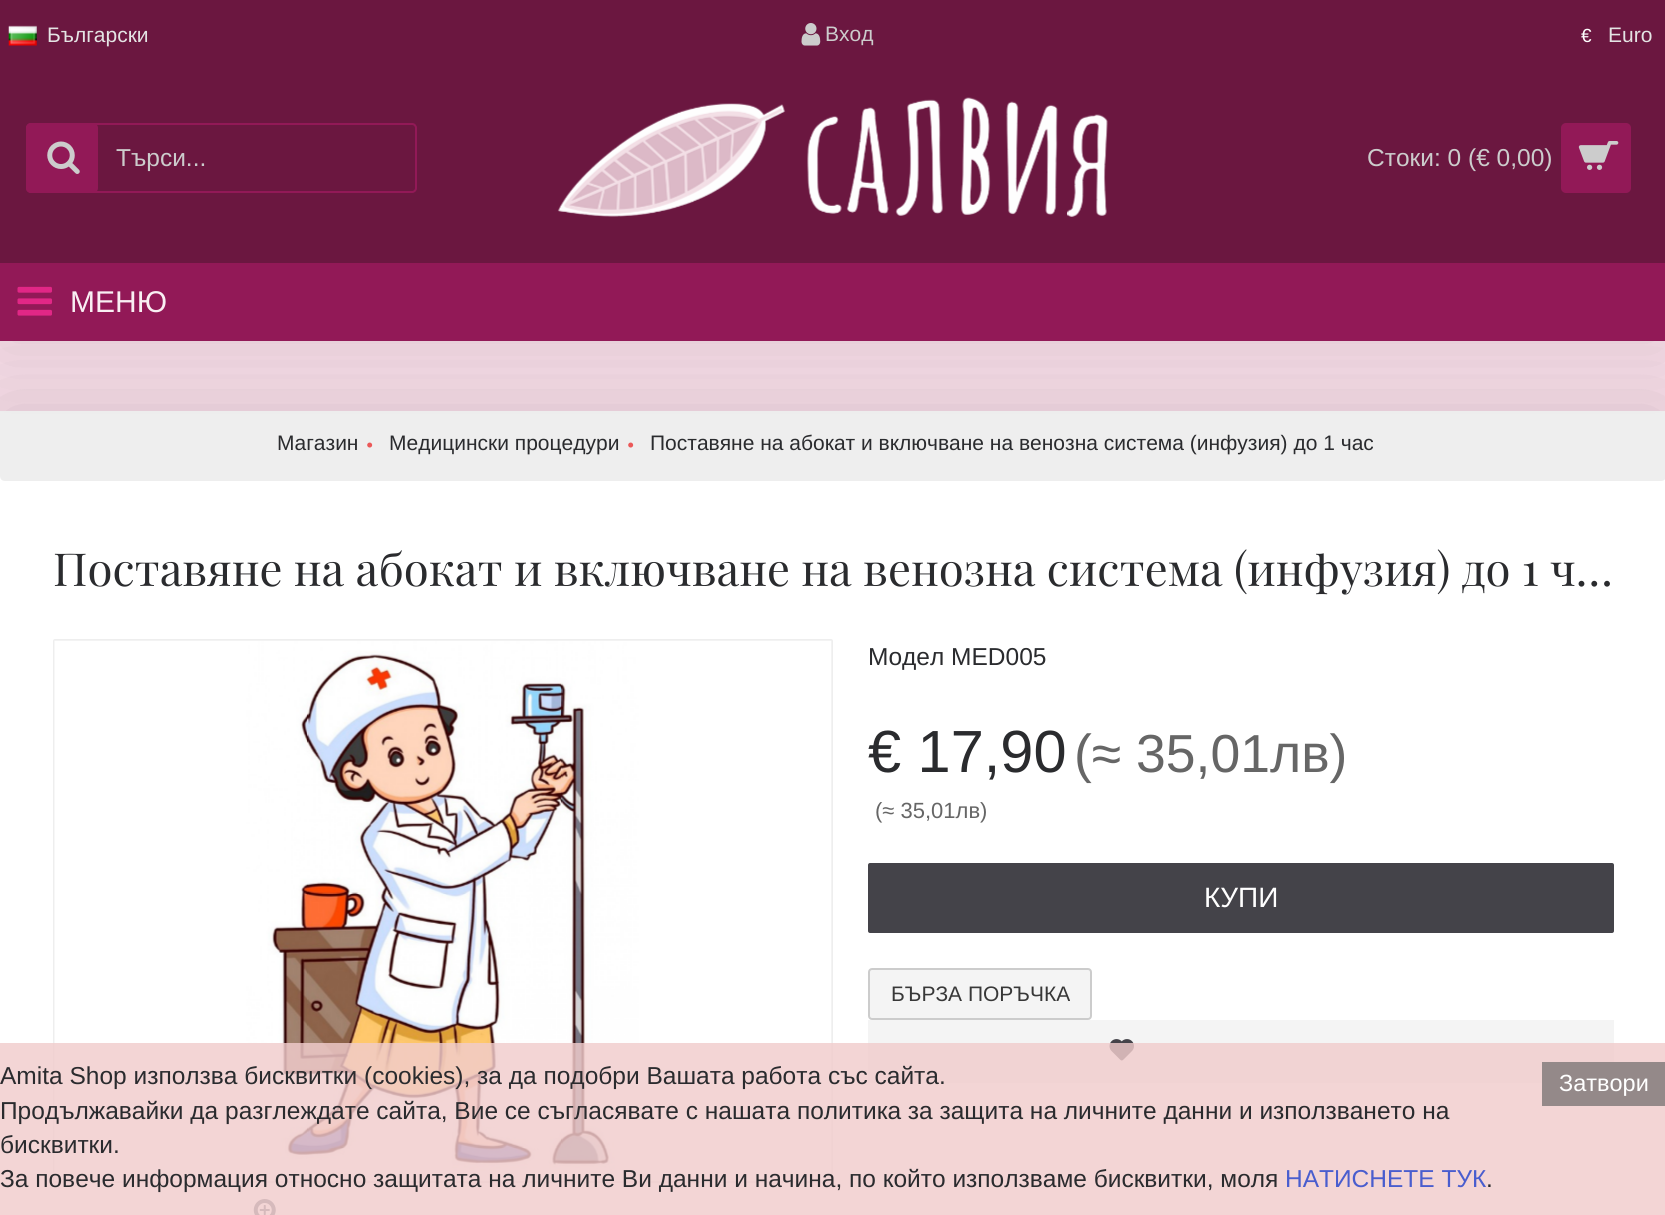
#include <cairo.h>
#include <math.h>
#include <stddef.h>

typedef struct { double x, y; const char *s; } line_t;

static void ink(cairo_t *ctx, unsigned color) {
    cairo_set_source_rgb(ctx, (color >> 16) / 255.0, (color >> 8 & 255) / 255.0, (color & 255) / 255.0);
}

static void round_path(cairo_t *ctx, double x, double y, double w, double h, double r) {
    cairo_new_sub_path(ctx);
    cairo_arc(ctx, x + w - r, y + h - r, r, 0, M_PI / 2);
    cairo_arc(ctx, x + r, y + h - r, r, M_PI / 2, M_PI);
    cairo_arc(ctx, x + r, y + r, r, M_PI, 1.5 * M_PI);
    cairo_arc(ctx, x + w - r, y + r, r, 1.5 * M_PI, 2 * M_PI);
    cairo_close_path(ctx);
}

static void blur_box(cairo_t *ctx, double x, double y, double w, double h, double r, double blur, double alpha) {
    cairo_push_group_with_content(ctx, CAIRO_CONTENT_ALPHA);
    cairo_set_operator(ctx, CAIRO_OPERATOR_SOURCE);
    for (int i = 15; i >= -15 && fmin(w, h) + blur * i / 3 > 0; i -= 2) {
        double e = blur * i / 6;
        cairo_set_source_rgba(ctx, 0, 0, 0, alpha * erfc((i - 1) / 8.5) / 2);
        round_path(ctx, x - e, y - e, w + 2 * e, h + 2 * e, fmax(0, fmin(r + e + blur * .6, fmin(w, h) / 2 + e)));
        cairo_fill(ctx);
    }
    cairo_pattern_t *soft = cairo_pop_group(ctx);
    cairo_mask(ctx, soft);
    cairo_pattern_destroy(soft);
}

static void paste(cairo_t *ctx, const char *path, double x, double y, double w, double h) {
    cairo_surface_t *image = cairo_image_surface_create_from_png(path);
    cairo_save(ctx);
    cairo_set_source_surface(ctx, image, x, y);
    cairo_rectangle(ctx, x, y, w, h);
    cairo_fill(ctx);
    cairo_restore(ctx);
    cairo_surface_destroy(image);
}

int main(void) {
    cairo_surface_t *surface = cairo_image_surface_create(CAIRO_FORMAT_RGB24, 1665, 1215);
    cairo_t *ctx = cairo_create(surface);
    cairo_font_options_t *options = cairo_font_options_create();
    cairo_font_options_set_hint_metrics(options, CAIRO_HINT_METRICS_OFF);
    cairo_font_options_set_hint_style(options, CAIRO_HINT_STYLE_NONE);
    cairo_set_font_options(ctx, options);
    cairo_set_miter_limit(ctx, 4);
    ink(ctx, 0xF9DEE9);
    cairo_paint(ctx);
    ink(ctx, 0x000000);
    blur_box(ctx, 0, 411, 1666, 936, 0, 44, 0.15);
    ink(ctx, 0xFFFFFF);
    cairo_rectangle(ctx, 0, 476, 1665, 739);
    cairo_fill(ctx);
    ink(ctx, 0xEEEEEE);
    cairo_new_path(ctx);
    cairo_move_to(ctx, 0, 411);
    cairo_line_to(ctx, 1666, 411);
    cairo_line_to(ctx, 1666, 476);
    cairo_curve_to(ctx, 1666, 479, 1664, 481, 1661, 481);
    cairo_line_to(ctx, 5, 481);
    cairo_curve_to(ctx, 2, 481, 0, 479, 0, 476);
    cairo_close_path(ctx);
    cairo_fill(ctx);
    ink(ctx, 0x000000);
    blur_box(ctx, 0, 9, 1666, 341, 0, 35, 0.1);
    ink(ctx, 0x6B1740);
    cairo_rectangle(ctx, 0, 0, 1665, 263);
    cairo_fill(ctx);
    paste(ctx, "media/1.png", 8, 25, 29, 21);
    cairo_select_font_face(ctx, "Liberation Sans", CAIRO_FONT_SLANT_NORMAL, CAIRO_FONT_WEIGHT_NORMAL);
    cairo_set_font_size(ctx, 21);
    ink(ctx, 0xE4E4E4);
    cairo_move_to(ctx, 47, 42);
    cairo_show_text(ctx, "Български");
    paste(ctx, "media/2.png", 801, 23, 20, 23);
    ink(ctx, 0xCCCCCC);
    cairo_move_to(ctx, 825, 41);
    cairo_show_text(ctx, "Вход");
    cairo_set_font_size(ctx, 19);
    ink(ctx, 0xFFFFFF);
    cairo_move_to(ctx, 1581, 42);
    cairo_show_text(ctx, "€");
    cairo_set_font_size(ctx, 21);
    ink(ctx, 0xE4E4E4);
    cairo_move_to(ctx, 1608, 42);
    cairo_show_text(ctx, "Euro");
    round_path(ctx, 27, 124, 389, 68, 4);
    ink(ctx, 0x921957);
    cairo_stroke(ctx);
    round_path(ctx, 26, 123, 72, 70, 5);
    cairo_fill(ctx);
    paste(ctx, "media/3.png", 47, 141, 33, 33);
    cairo_set_font_size(ctx, 24.5);
    ink(ctx, 0xCCCCCC);
    cairo_move_to(ctx, 116, 166);
    cairo_show_text(ctx, "Търси...");
    paste(ctx, "media/4.png", 557, 97, 551, 120);
    cairo_move_to(ctx, 1367, 166);
    cairo_show_text(ctx, "Стоки: 0 (€ 0,00)");
    ink(ctx, 0x921957);
    round_path(ctx, 1561, 123, 70, 70, 5);
    cairo_fill(ctx);
    paste(ctx, "media/5.png", 1578, 141, 41, 29);
    cairo_rectangle(ctx, 0, 263, 1665, 78);
    cairo_fill(ctx);
    paste(ctx, "media/6.png", 17, 286, 35, 30);
    cairo_set_font_size(ctx, 30);
    ink(ctx, 0xF9EFF3);
    cairo_move_to(ctx, 70, 312);
    cairo_show_text(ctx, "МЕНЮ");
    cairo_set_font_size(ctx, 21);
    ink(ctx, 0x2A2B2E);
    cairo_move_to(ctx, 277, 450);
    cairo_show_text(ctx, "Магазин");
    cairo_select_font_face(ctx, "Liberation Serif", CAIRO_FONT_SLANT_NORMAL, CAIRO_FONT_WEIGHT_NORMAL);
    ink(ctx, 0xEB5858);
    cairo_move_to(ctx, 366, 452);
    cairo_show_text(ctx, "•");
    cairo_select_font_face(ctx, "Liberation Sans", CAIRO_FONT_SLANT_NORMAL, CAIRO_FONT_WEIGHT_NORMAL);
    ink(ctx, 0x2A2B2E);
    cairo_move_to(ctx, 389, 450);
    cairo_show_text(ctx, "Медицински процедури");
    cairo_select_font_face(ctx, "Liberation Serif", CAIRO_FONT_SLANT_NORMAL, CAIRO_FONT_WEIGHT_NORMAL);
    ink(ctx, 0xEB5858);
    cairo_move_to(ctx, 627, 452);
    cairo_show_text(ctx, "•");
    cairo_select_font_face(ctx, "Liberation Sans", CAIRO_FONT_SLANT_NORMAL, CAIRO_FONT_WEIGHT_NORMAL);
    ink(ctx, 0x2A2B2E);
    cairo_move_to(ctx, 650, 450);
    cairo_show_text(ctx, "Поставяне на абокат и включване на венозна система (инфузия) до 1 час");
    cairo_select_font_face(ctx, "Playfair Display", CAIRO_FONT_SLANT_NORMAL, CAIRO_FONT_WEIGHT_NORMAL);
    cairo_set_font_size(ctx, 45.5);
    cairo_move_to(ctx, 53, 586);
    cairo_show_text(ctx, "Поставяне на абокат и включване на венозна система (инфузия) до 1 ч…");
    round_path(ctx, 54, 640, 778, 542, 1);
    ink(ctx, 0xEEEEEE);
    cairo_stroke(ctx);
    paste(ctx, "media/7.png", 54, 640, 778, 541);
    paste(ctx, "media/8.png", 253, 1199, 23, 16);
    cairo_select_font_face(ctx, "Liberation Sans", CAIRO_FONT_SLANT_NORMAL, CAIRO_FONT_WEIGHT_NORMAL);
    cairo_set_font_size(ctx, 24.5);
    ink(ctx, 0x2A2B2E);
    cairo_move_to(ctx, 868, 665);
    cairo_show_text(ctx, "Модел MED005");
    cairo_set_font_size(ctx, 59.5);
    cairo_move_to(ctx, 868, 772);
    cairo_show_text(ctx, "€ 17,90");
    cairo_set_font_size(ctx, 53.5);
    ink(ctx, 0x666666);
    cairo_move_to(ctx, 1074, 772);
    cairo_show_text(ctx, "(≈ 35,01лв)");
    cairo_set_font_size(ctx, 22);
    cairo_move_to(ctx, 875, 818);
    cairo_show_text(ctx, "(≈ 35,01лв)");
    ink(ctx, 0x444349);
    round_path(ctx, 868, 863, 746, 70, 2);
    cairo_fill(ctx);
    cairo_set_font_size(ctx, 28);
    ink(ctx, 0xFFFFFF);
    cairo_move_to(ctx, 1204, 907);
    cairo_show_text(ctx, "КУПИ");
    ink(ctx, 0xF4F4F4);
    round_path(ctx, 869, 969, 222, 50, 3);
    cairo_fill_preserve(ctx);
    ink(ctx, 0xCCCCCC);
    cairo_stroke(ctx);
    cairo_set_font_size(ctx, 21);
    ink(ctx, 0x383838);
    cairo_move_to(ctx, 891, 1001);
    cairo_show_text(ctx, "БЪРЗА ПОРЪЧКА");
    ink(ctx, 0xF4F4F4);
    cairo_rectangle(ctx, 868, 1020, 746, 63);
    cairo_fill(ctx);
    paste(ctx, "media/9.png", 1109, 1039, 25, 22);
    cairo_set_source_rgba(ctx, 0.941, 0.8, 0.8, 0.82);
    cairo_rectangle(ctx, 0, 1043, 1665, 172);
    cairo_fill(ctx);
    cairo_set_font_size(ctx, 24.5);
    ink(ctx, 0x2A2B2E);
    cairo_move_to(ctx, 0, 1084);
    cairo_show_text(ctx, "Amita Shop използва бисквитки (cookies), за да подобри Вашата работа със сайта.");
    ink(ctx, 0x948989);
    cairo_rectangle(ctx, 1542, 1062, 123, 44);
    cairo_fill(ctx);
    cairo_set_font_size(ctx, 23.5);
    ink(ctx, 0xFFFFFF);
    cairo_move_to(ctx, 1559, 1091);
    cairo_show_text(ctx, "Затвори");
    cairo_set_font_size(ctx, 24.5);
    ink(ctx, 0x2A2B2E);
    {
        static const line_t items[] = {
            {0, 1119, "Продължавайки да разглеждате сайта, Вие се съгласявате с нашата политика за защита на личните данни и използването на"},
            {0, 1153, "бисквитки."},
            {0, 1187, "За повече информация относно защитата на личните Ви данни и начина, по който използваме бисквитки, моля"},
        };
        for (size_t i = 0; i < sizeof items / sizeof *items; i++) {
            cairo_move_to(ctx, items[i].x, items[i].y);
            cairo_show_text(ctx, items[i].s);
        }
    }
    ink(ctx, 0x495DCE);
    cairo_move_to(ctx, 1285, 1187);
    cairo_show_text(ctx, "НАТИСНЕТЕ ТУК");
    ink(ctx, 0x2A2B2E);
    cairo_move_to(ctx, 1486, 1187);
    cairo_show_text(ctx, ".");
    cairo_surface_write_to_png(surface, "image.png");
    cairo_font_options_destroy(options);
    cairo_destroy(ctx);
    cairo_surface_destroy(surface);
    return 0;
}
